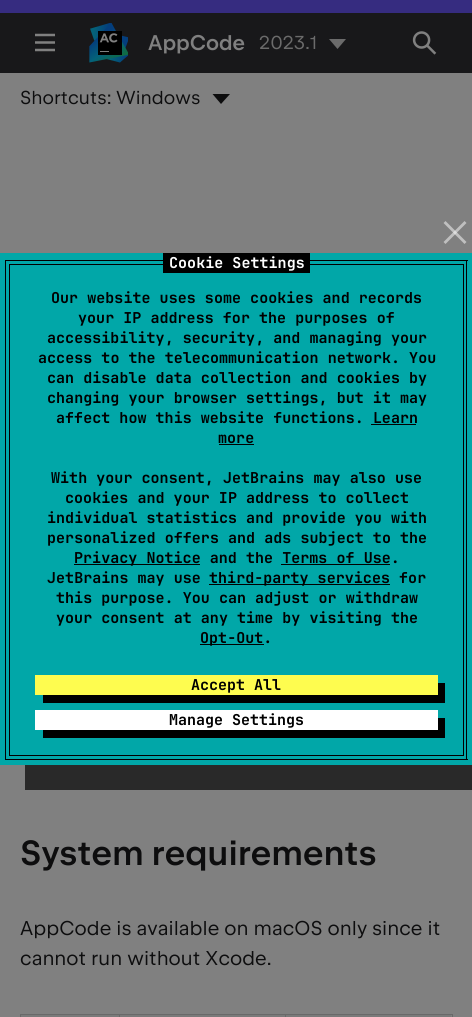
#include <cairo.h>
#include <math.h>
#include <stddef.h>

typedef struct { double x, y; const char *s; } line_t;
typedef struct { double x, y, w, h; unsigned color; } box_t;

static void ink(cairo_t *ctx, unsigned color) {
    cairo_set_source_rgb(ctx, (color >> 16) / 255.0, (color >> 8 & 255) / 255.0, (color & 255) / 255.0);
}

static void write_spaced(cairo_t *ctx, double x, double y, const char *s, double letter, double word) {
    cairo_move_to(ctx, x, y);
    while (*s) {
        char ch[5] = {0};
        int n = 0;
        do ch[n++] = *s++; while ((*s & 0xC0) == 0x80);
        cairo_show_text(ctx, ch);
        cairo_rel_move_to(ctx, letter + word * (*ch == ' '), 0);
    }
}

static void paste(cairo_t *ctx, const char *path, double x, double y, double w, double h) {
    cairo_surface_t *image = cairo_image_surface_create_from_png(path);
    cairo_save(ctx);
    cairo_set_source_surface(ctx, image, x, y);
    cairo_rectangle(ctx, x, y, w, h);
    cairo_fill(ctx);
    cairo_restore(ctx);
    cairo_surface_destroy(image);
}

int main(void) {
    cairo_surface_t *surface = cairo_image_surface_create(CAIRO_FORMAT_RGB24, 472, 1017);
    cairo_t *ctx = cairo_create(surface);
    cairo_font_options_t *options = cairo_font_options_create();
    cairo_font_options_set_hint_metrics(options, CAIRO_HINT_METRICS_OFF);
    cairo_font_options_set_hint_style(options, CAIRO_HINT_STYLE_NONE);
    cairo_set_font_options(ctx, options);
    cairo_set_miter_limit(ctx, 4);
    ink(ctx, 0x808080);
    cairo_paint(ctx);
    ink(ctx, 0x362C80);
    cairo_rectangle(ctx, 0, 0, 472, 13);
    cairo_fill(ctx);
    ink(ctx, 0x18181A);
    cairo_rectangle(ctx, 0, 13, 472, 60);
    cairo_fill(ctx);
    paste(ctx, "media/1.png", 35, 33, 20, 19);
    paste(ctx, "media/2.png", 89, 23, 39, 40);
    cairo_select_font_face(ctx, "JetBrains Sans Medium", CAIRO_FONT_SLANT_NORMAL, CAIRO_FONT_WEIGHT_NORMAL);
    cairo_set_font_size(ctx, 21.25);
    ink(ctx, 0x808080);
    cairo_move_to(ctx, 148, 50);
    cairo_show_text(ctx, "AppCode");
    cairo_select_font_face(ctx, "JetBrains Sans", CAIRO_FONT_SLANT_NORMAL, CAIRO_FONT_WEIGHT_NORMAL);
    cairo_set_font_size(ctx, 18.75);
    ink(ctx, 0x6B6B6B);
    write_spaced(ctx, 259, 49, "2023.1", 0.05, 0);
    cairo_new_path(ctx);
    cairo_move_to(ctx, 337.5, 49);
    cairo_line_to(ctx, 329, 39);
    cairo_line_to(ctx, 346, 39);
    cairo_close_path(ctx);
    cairo_fill(ctx);
    paste(ctx, "media/3.png", 412, 31, 25, 24);
    ink(ctx, 0x0D0D0E);
    write_spaced(ctx, 20, 104, "Shortcuts:", 0.05, 0);
    write_spaced(ctx, 116, 104, "Windows", 0.05, 0);
    cairo_new_path(ctx);
    cairo_move_to(ctx, 221, 104);
    cairo_line_to(ctx, 212.5, 94);
    cairo_line_to(ctx, 230, 94);
    cairo_close_path(ctx);
    cairo_fill(ctx);
    cairo_select_font_face(ctx, "JetBrains Sans Medium", CAIRO_FONT_SLANT_NORMAL, CAIRO_FONT_WEIGHT_NORMAL);
    cairo_set_font_size(ctx, 35);
    write_spaced(ctx, 20, 865, "System requirements", 0.05, 0);
    cairo_select_font_face(ctx, "JetBrains Sans", CAIRO_FONT_SLANT_NORMAL, CAIRO_FONT_WEIGHT_NORMAL);
    cairo_set_font_size(ctx, 20);
    write_spaced(ctx, 20, 935, "AppCode is available on macOS only since it", 0.05, 0);
    write_spaced(ctx, 20, 965, "cannot run without Xcode.", 0.05, 0);
    cairo_rectangle(ctx, 20.5, 1014.5, 432, 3);
    ink(ctx, 0x696969);
    cairo_set_line_width(ctx, 1);
    cairo_stroke(ctx);
    {
        static const box_t items[] = {
            {21, 1015, 430, 2, 0x7A7A7A},
            {119, 1015, 1, 2, 0x696969},
            {285, 1015, 1, 2, 0x696969},
        };
        for (size_t i = 0; i < sizeof items / sizeof *items; i++) {
            ink(ctx, items[i].color);
            cairo_rectangle(ctx, items[i].x, items[i].y, items[i].w, items[i].h);
            cairo_fill(ctx);
        }
    }
    ink(ctx, 0x292929);
    cairo_new_path(ctx);
    cairo_move_to(ctx, 25, 765);
    cairo_line_to(ctx, 25, 790);
    cairo_line_to(ctx, 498, 790);
    cairo_line_to(ctx, 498, 278);
    cairo_line_to(ctx, 472, 278);
    cairo_line_to(ctx, 472, 765);
    cairo_close_path(ctx);
    cairo_fill(ctx);
    ink(ctx, 0x01A7A8);
    cairo_rectangle(ctx, 0, 253, 472, 512);
    cairo_fill(ctx);
    ink(ctx, 0xBFBFBF);
    cairo_new_path(ctx);
    cairo_move_to(ctx, 443.5, 242);
    cairo_line_to(ctx, 464.5, 221);
    cairo_line_to(ctx, 466.5, 223);
    cairo_line_to(ctx, 445.5, 244);
    cairo_close_path(ctx);
    cairo_fill(ctx);
    cairo_set_source_rgba(ctx, 1, 1, 1, 0.5);
    cairo_new_path(ctx);
    cairo_move_to(ctx, 445.5, 221);
    cairo_line_to(ctx, 466.5, 242);
    cairo_line_to(ctx, 464.5, 244);
    cairo_line_to(ctx, 443.5, 223);
    cairo_close_path(ctx);
    cairo_fill(ctx);
    {
        static const box_t items[] = {
            {9, 264, 455, 1, 0x000000},
            {463, 264, 1, 492, 0x000000},
            {9, 264, 1, 411, 0x000000},
            {5, 260, 463, 1, 0x000000},
            {163, 253, 147, 20, 0x000000},
        };
        for (size_t i = 0; i < sizeof items / sizeof *items; i++) {
            ink(ctx, items[i].color);
            cairo_rectangle(ctx, items[i].x, items[i].y, items[i].w, items[i].h);
            cairo_fill(ctx);
        }
    }
    cairo_select_font_face(ctx, "JetBrains Mono", CAIRO_FONT_SLANT_NORMAL, CAIRO_FONT_WEIGHT_BOLD);
    cairo_set_font_size(ctx, 15);
    ink(ctx, 0xFFFFFF);
    write_spaced(ctx, 169, 268, "Cookie Settings", 0.05, 0);
    ink(ctx, 0x000000);
    cairo_rectangle(ctx, 466, 260, 1, 500);
    cairo_fill(ctx);
    cairo_rectangle(ctx, 5, 260, 1, 414);
    cairo_fill(ctx);
    {
        static const line_t items[] = {
            {51, 303, "Our website uses some cookies and records"},
            {78, 323, "your IP address for the purposes of"},
            {47, 343, "accessibility, security, and managing your"},
            {38, 363, "access to the telecommunication network. You"},
            {47, 383, "can disable data collection and cookies by"},
            {47, 403, "changing your browser settings, but it may"},
            {56, 423, "affect how this website functions. Learn"},
            {218, 443, "more"},
        };
        for (size_t i = 0; i < sizeof items / sizeof *items; i++) {
            write_spaced(ctx, items[i].x, items[i].y, items[i].s, 0.05, 0);
        }
    }
    cairo_rectangle(ctx, 371, 424, 45, 1);
    cairo_fill(ctx);
    cairo_rectangle(ctx, 219, 444, 35, 1);
    cairo_fill(ctx);
    {
        static const line_t items[] = {
            {51, 483, "With your consent, JetBrains may also use"},
            {65, 503, "cookies and your IP address to collect"},
            {47, 523, "individual statistics and provide you with"},
            {47, 543, "personalized offers and ads subject to the"},
        };
        for (size_t i = 0; i < sizeof items / sizeof *items; i++) {
            write_spaced(ctx, items[i].x, items[i].y, items[i].s, 0.05, 0);
        }
    }
    cairo_rectangle(ctx, 74, 564, 126, 1);
    cairo_fill(ctx);
    write_spaced(ctx, 74, 563, "Privacy Notice and the Terms of Use.", 0.05, 0);
    cairo_rectangle(ctx, 281, 564, 109, 1);
    cairo_fill(ctx);
    write_spaced(ctx, 47, 583, "JetBrains may use", 0.05, 0);
    cairo_rectangle(ctx, 209, 584, 181, 1);
    cairo_fill(ctx);
    {
        static const line_t items[] = {
            {209, 583, "third-party services for"},
            {56, 603, "this purpose. You can adjust or withdraw"},
            {56, 623, "your consent at any time by visiting the"},
        };
        for (size_t i = 0; i < sizeof items / sizeof *items; i++) {
            write_spaced(ctx, items[i].x, items[i].y, items[i].s, 0.05, 0);
        }
    }
    cairo_rectangle(ctx, 200, 644, 64, 1);
    cairo_fill(ctx);
    write_spaced(ctx, 200, 643, "Opt-Out.", 0.05, 0);
    {
        static const box_t items[] = {
            {9, 755, 455, 1, 0x000000},
            {9, 675, 1, 81, 0x000000},
            {5, 759, 463, 1, 0x000000},
            {5, 674, 1, 86, 0x000000},
        };
        for (size_t i = 0; i < sizeof items / sizeof *items; i++) {
            ink(ctx, items[i].color);
            cairo_rectangle(ctx, items[i].x, items[i].y, items[i].w, items[i].h);
            cairo_fill(ctx);
        }
    }
    cairo_new_path(ctx);
    cairo_move_to(ctx, 43, 695);
    cairo_line_to(ctx, 43, 703);
    cairo_line_to(ctx, 445, 703);
    cairo_line_to(ctx, 445, 683);
    cairo_line_to(ctx, 438, 683);
    cairo_line_to(ctx, 438, 695);
    cairo_close_path(ctx);
    cairo_fill(ctx);
    ink(ctx, 0xFEFC4F);
    cairo_rectangle(ctx, 35, 675, 403, 20);
    cairo_fill(ctx);
    ink(ctx, 0x000000);
    cairo_move_to(ctx, 191, 690);
    cairo_show_text(ctx, "Accept All");
    cairo_new_path(ctx);
    cairo_move_to(ctx, 43, 730);
    cairo_line_to(ctx, 43, 738);
    cairo_line_to(ctx, 445, 738);
    cairo_line_to(ctx, 445, 718);
    cairo_line_to(ctx, 438, 718);
    cairo_line_to(ctx, 438, 730);
    cairo_close_path(ctx);
    cairo_fill(ctx);
    ink(ctx, 0xFFFFFF);
    cairo_rectangle(ctx, 35, 710, 403, 20);
    cairo_fill(ctx);
    ink(ctx, 0x000000);
    cairo_move_to(ctx, 169, 725);
    cairo_show_text(ctx, "Manage Settings");
    cairo_surface_write_to_png(surface, "image.png");
    cairo_font_options_destroy(options);
    cairo_destroy(ctx);
    cairo_surface_destroy(surface);
    return 0;
}
